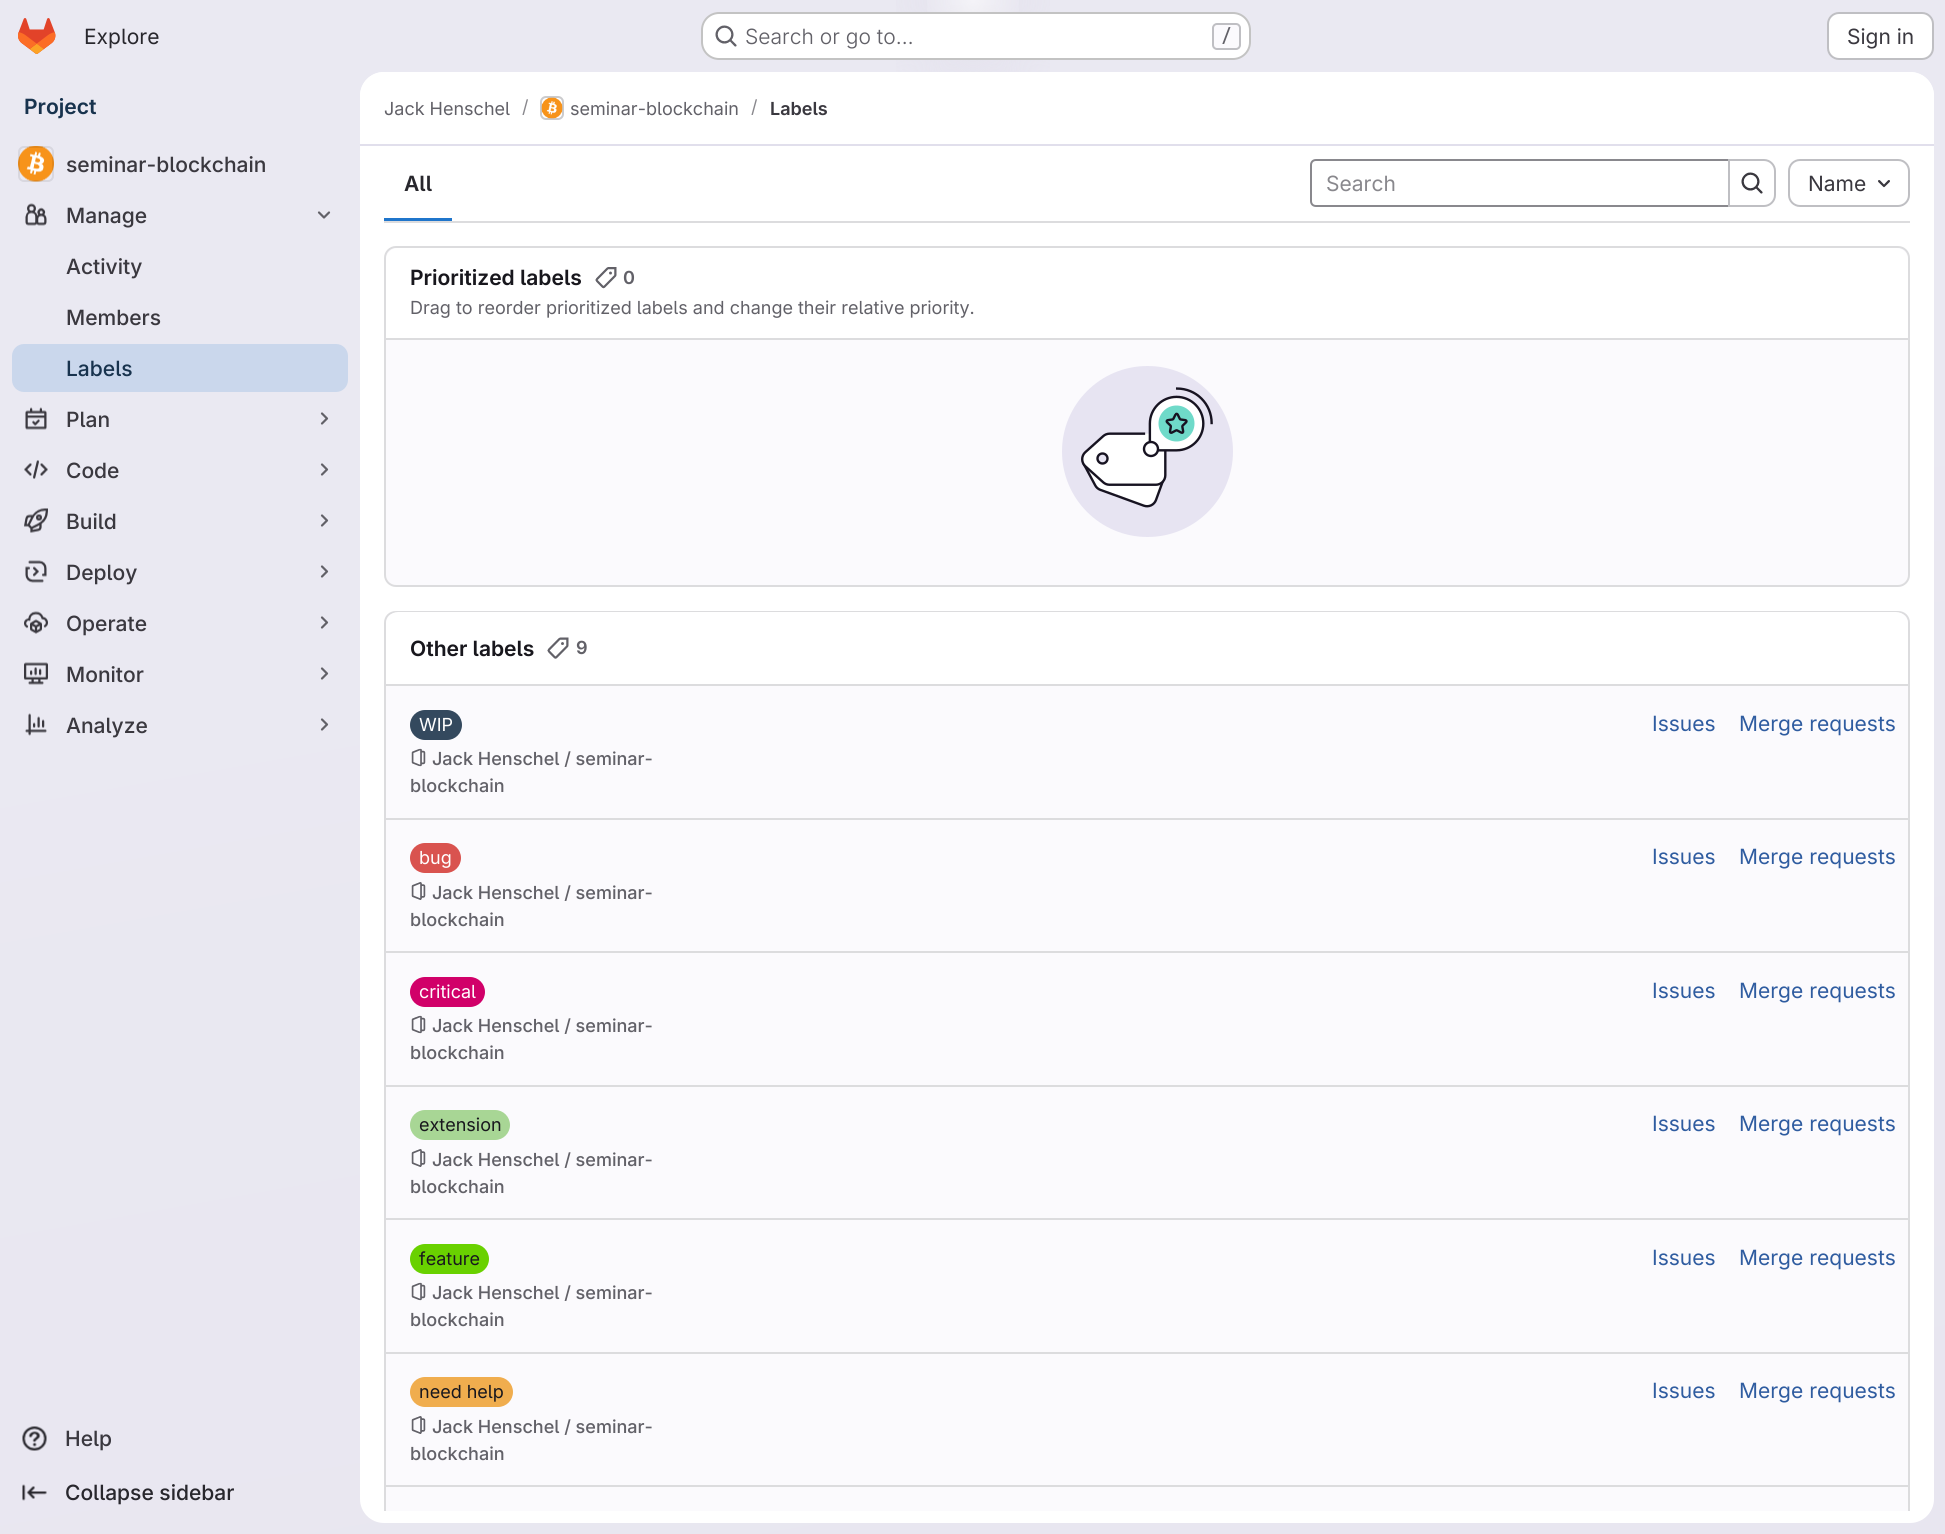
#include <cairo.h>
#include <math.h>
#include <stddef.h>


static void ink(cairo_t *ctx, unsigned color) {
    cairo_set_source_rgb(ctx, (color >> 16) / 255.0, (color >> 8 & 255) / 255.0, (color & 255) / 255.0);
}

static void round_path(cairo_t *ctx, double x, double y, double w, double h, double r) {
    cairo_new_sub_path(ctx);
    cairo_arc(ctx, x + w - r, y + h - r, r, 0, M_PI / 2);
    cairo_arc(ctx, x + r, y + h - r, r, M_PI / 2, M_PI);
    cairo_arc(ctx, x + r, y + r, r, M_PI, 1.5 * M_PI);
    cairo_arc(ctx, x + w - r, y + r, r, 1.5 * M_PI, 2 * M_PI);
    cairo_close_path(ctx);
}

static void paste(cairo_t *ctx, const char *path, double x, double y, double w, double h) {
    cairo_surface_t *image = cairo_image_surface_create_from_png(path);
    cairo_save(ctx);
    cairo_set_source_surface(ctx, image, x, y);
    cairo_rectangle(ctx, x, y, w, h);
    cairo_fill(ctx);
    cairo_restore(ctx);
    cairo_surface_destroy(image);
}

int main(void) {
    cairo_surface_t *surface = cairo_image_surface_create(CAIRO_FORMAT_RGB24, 1945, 1534);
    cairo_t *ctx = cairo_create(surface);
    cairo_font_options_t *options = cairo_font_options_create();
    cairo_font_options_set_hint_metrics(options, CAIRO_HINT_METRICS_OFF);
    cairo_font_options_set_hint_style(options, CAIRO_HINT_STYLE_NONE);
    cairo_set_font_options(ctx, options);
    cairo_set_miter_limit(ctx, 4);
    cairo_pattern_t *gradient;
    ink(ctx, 0xFFFFFF);
    cairo_paint(ctx);
    gradient = cairo_pattern_create_linear(1133, 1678, 812, -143);
    cairo_pattern_add_color_stop_rgba(gradient, 0, 0.91, 0.902, 0.941, 1);
    cairo_pattern_add_color_stop_rgba(gradient, 0.7, 0.918, 0.914, 0.949, 1);
    cairo_set_source(ctx, gradient);
    cairo_pattern_destroy(gradient);
    cairo_rectangle(ctx, 0, 0, 1945, 1534);
    cairo_fill(ctx);
    gradient = cairo_pattern_create_radial(0, 0, 0, 0, 0, 1);
    cairo_pattern_set_matrix(gradient, &(cairo_matrix_t){1.0 / 973, 0, 0, 1.0 / 1535, -1.0 * 973 / 973, -1.0 * 0 / 1535});
    cairo_pattern_add_color_stop_rgba(gradient, 0, 0.894, 0.886, 0.929, 1);
    cairo_pattern_add_color_stop_rgba(gradient, 0.11, 0.894, 0.886, 0.929, 0);
    cairo_set_source(ctx, gradient);
    cairo_pattern_destroy(gradient);
    cairo_rectangle(ctx, 896, 0, 154, 72);
    cairo_fill(ctx);
    gradient = cairo_pattern_create_radial(0, 0, 0, 0, 0, 1);
    cairo_pattern_set_matrix(gradient, &(cairo_matrix_t){1.0 / 973, 0, 0, 1.0 / 1535, -1.0 * 973 / 973, -1.0 * 0 / 1535});
    cairo_pattern_add_color_stop_rgba(gradient, 0, 0.894, 0.886, 0.925, 1);
    cairo_pattern_add_color_stop_rgba(gradient, 0.08, 0.894, 0.886, 0.925, 0);
    cairo_set_source(ctx, gradient);
    cairo_pattern_destroy(gradient);
    cairo_rectangle(ctx, 950, 5, 46, 46);
    cairo_fill(ctx);
    gradient = cairo_pattern_create_radial(973, 0, 0, 973, 0, 1817);
    cairo_pattern_add_color_stop_rgba(gradient, 0, 1, 1, 1, 0.6);
    cairo_pattern_add_color_stop_rgba(gradient, 0.03, 1, 1, 1, 0);
    cairo_set_source(ctx, gradient);
    cairo_pattern_destroy(gradient);
    cairo_rectangle(ctx, 927, 0, 92, 12);
    cairo_fill(ctx);
    paste(ctx, "media/1.png", 18, 18, 38, 36);
    cairo_select_font_face(ctx, "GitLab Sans", CAIRO_FONT_SLANT_NORMAL, CAIRO_FONT_WEIGHT_NORMAL);
    cairo_set_font_size(ctx, 21);
    ink(ctx, 0x28272D);
    cairo_move_to(ctx, 84, 44);
    cairo_show_text(ctx, "Explore");
    ink(ctx, 0xFFFFFF);
    round_path(ctx, 701, 12, 550, 48, 18);
    cairo_fill(ctx);
    round_path(ctx, 702, 13, 548, 46, 17);
    cairo_set_source_rgba(ctx, 0.02, 0.02, 0.024, 0.24);
    cairo_stroke(ctx);
    paste(ctx, "media/2.png", 715, 25, 22, 22);
    cairo_select_font_face(ctx, "GitLab Sans Light", CAIRO_FONT_SLANT_NORMAL, CAIRO_FONT_WEIGHT_NORMAL);
    ink(ctx, 0x626168);
    cairo_move_to(ctx, 745, 44);
    cairo_show_text(ctx, "Search or go to…");
    ink(ctx, 0xFBFAFD);
    round_path(ctx, 1213, 24, 27, 25, 4);
    cairo_fill_preserve(ctx);
    ink(ctx, 0xBFBFC3);
    cairo_stroke(ctx);
    cairo_select_font_face(ctx, "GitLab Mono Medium", CAIRO_FONT_SLANT_NORMAL, CAIRO_FONT_WEIGHT_NORMAL);
    cairo_set_font_size(ctx, 18);
    ink(ctx, 0x626168);
    cairo_move_to(ctx, 1221, 42);
    cairo_show_text(ctx, "/");
    ink(ctx, 0xFFFFFF);
    round_path(ctx, 1828, 13, 105, 46, 11);
    cairo_fill_preserve(ctx);
    ink(ctx, 0xBFBFC3);
    cairo_stroke(ctx);
    cairo_select_font_face(ctx, "GitLab Sans", CAIRO_FONT_SLANT_NORMAL, CAIRO_FONT_WEIGHT_NORMAL);
    cairo_set_font_size(ctx, 21);
    ink(ctx, 0x3A383F);
    cairo_move_to(ctx, 1847, 44);
    cairo_show_text(ctx, "Sign in");
    cairo_select_font_face(ctx, "GitLab Sans SemiBold", CAIRO_FONT_SLANT_NORMAL, CAIRO_FONT_WEIGHT_NORMAL);
    ink(ctx, 0x18334E);
    cairo_move_to(ctx, 24, 114);
    cairo_show_text(ctx, "Project");
    paste(ctx, "media/3.png", 18, 146, 36, 36);
    round_path(ctx, 19, 147, 34, 34, 5);
    cairo_set_source_rgba(ctx, 0.02, 0.02, 0.024, 0.08);
    cairo_stroke(ctx);
    cairo_select_font_face(ctx, "GitLab Sans Medium", CAIRO_FONT_SLANT_NORMAL, CAIRO_FONT_WEIGHT_NORMAL);
    ink(ctx, 0x3A383F);
    cairo_move_to(ctx, 66, 172);
    cairo_show_text(ctx, "seminar-blockchain");
    paste(ctx, "media/4.png", 25, 203, 22, 23);
    cairo_move_to(ctx, 66, 223);
    cairo_show_text(ctx, "Manage");
    cairo_new_path(ctx);
    cairo_move_to(ctx, 329, 212.5);
    cairo_line_to(ctx, 324, 217.5);
    cairo_line_to(ctx, 319, 212.5);
    ink(ctx, 0x626168);
    cairo_set_line_width(ctx, 2.2);
    cairo_set_line_cap(ctx, CAIRO_LINE_CAP_ROUND);
    cairo_set_line_join(ctx, CAIRO_LINE_JOIN_ROUND);
    cairo_stroke(ctx);
    ink(ctx, 0x3A383F);
    cairo_move_to(ctx, 66, 274);
    cairo_show_text(ctx, "Activity");
    cairo_move_to(ctx, 66, 325);
    cairo_show_text(ctx, "Members");
    ink(ctx, 0xCAD7EC);
    round_path(ctx, 12, 344, 336, 48, 12);
    cairo_fill(ctx);
    ink(ctx, 0x18334E);
    cairo_move_to(ctx, 66, 376);
    cairo_show_text(ctx, "Labels");
    paste(ctx, "media/5.png", 25, 407, 22, 23);
    ink(ctx, 0x3A383F);
    cairo_move_to(ctx, 66, 427);
    cairo_show_text(ctx, "Plan");
    cairo_new_path(ctx);
    cairo_move_to(ctx, 322, 413.5);
    cairo_line_to(ctx, 327, 418.5);
    cairo_line_to(ctx, 322, 423.5);
    ink(ctx, 0x626168);
    cairo_stroke(ctx);
    paste(ctx, "media/6.png", 24, 460, 24, 19);
    ink(ctx, 0x3A383F);
    cairo_move_to(ctx, 66, 478);
    cairo_show_text(ctx, "Code");
    cairo_new_path(ctx);
    cairo_move_to(ctx, 322, 464.5);
    cairo_line_to(ctx, 327, 469.5);
    cairo_line_to(ctx, 322, 474.5);
    ink(ctx, 0x626168);
    cairo_stroke(ctx);
    paste(ctx, "media/7.png", 24, 508, 24, 25);
    ink(ctx, 0x3A383F);
    cairo_move_to(ctx, 66, 529);
    cairo_show_text(ctx, "Build");
    cairo_new_path(ctx);
    cairo_move_to(ctx, 322, 515.5);
    cairo_line_to(ctx, 327, 520.5);
    cairo_line_to(ctx, 322, 525.5);
    ink(ctx, 0x626168);
    cairo_stroke(ctx);
    paste(ctx, "media/8.png", 25, 560, 22, 23);
    ink(ctx, 0x3A383F);
    cairo_move_to(ctx, 66, 580);
    cairo_show_text(ctx, "Deploy");
    cairo_new_path(ctx);
    cairo_move_to(ctx, 322, 566.5);
    cairo_line_to(ctx, 327, 571.5);
    cairo_line_to(ctx, 322, 576.5);
    ink(ctx, 0x626168);
    cairo_stroke(ctx);
    paste(ctx, "media/9.png", 24, 611, 24, 23);
    ink(ctx, 0x3A383F);
    cairo_move_to(ctx, 66, 631);
    cairo_show_text(ctx, "Operate");
    cairo_new_path(ctx);
    cairo_move_to(ctx, 322, 617.5);
    cairo_line_to(ctx, 327, 622.5);
    cairo_line_to(ctx, 322, 627.5);
    ink(ctx, 0x626168);
    cairo_stroke(ctx);
    paste(ctx, "media/10.png", 24, 662, 24, 23);
    ink(ctx, 0x3A383F);
    cairo_move_to(ctx, 66, 682);
    cairo_show_text(ctx, "Monitor");
    cairo_new_path(ctx);
    cairo_move_to(ctx, 322, 668.5);
    cairo_line_to(ctx, 327, 673.5);
    cairo_line_to(ctx, 322, 678.5);
    ink(ctx, 0x626168);
    cairo_stroke(ctx);
    paste(ctx, "media/11.png", 25, 713, 22, 23);
    ink(ctx, 0x3A383F);
    cairo_move_to(ctx, 66, 733);
    cairo_show_text(ctx, "Analyze");
    cairo_new_path(ctx);
    cairo_move_to(ctx, 322, 719.5);
    cairo_line_to(ctx, 327, 724.5);
    cairo_line_to(ctx, 322, 729.5);
    ink(ctx, 0x626168);
    cairo_stroke(ctx);
    paste(ctx, "media/12.png", 22, 1426, 25, 25);
    ink(ctx, 0x3A383F);
    cairo_move_to(ctx, 65, 1446);
    cairo_show_text(ctx, "Help");
    paste(ctx, "media/13.png", 22, 1484, 25, 17);
    ink(ctx, 0x28272D);
    cairo_move_to(ctx, 65, 1500);
    cairo_show_text(ctx, "Collapse sidebar");
    ink(ctx, 0xFFFFFF);
    round_path(ctx, 360, 72, 1574, 1451, 24);
    cairo_fill(ctx);
    cairo_new_path(ctx);
    cairo_move_to(ctx, 384, 72);
    cairo_line_to(ctx, 1910, 72);
    cairo_curve_to(ctx, 1923.5, 72, 1934, 82.5, 1934, 96);
    cairo_line_to(ctx, 1934, 146);
    cairo_line_to(ctx, 360, 146);
    cairo_line_to(ctx, 360, 96);
    cairo_curve_to(ctx, 360, 82.5, 370.5, 72, 384, 72);
    cairo_close_path(ctx);
    cairo_fill(ctx);
    ink(ctx, 0xE1DFEC);
    cairo_rectangle(ctx, 360, 144, 1574, 2);
    cairo_fill(ctx);
    cairo_select_font_face(ctx, "GitLab Sans", CAIRO_FONT_SLANT_NORMAL, CAIRO_FONT_WEIGHT_NORMAL);
    cairo_set_font_size(ctx, 18);
    ink(ctx, 0x626168);
    cairo_move_to(ctx, 384, 115);
    cairo_show_text(ctx, "Jack Henschel");
    ink(ctx, 0x89888D);
    cairo_move_to(ctx, 522, 113);
    cairo_show_text(ctx, "/");
    round_path(ctx, 541, 97, 22, 22, 5);
    ink(ctx, 0xDCDCDE);
    cairo_set_line_width(ctx, 2);
    cairo_set_line_cap(ctx, CAIRO_LINE_CAP_BUTT);
    cairo_set_line_join(ctx, CAIRO_LINE_JOIN_MITER);
    cairo_stroke(ctx);
    paste(ctx, "media/14.png", 541, 97, 22, 22);
    round_path(ctx, 541, 97, 22, 22, 5);
    cairo_set_source_rgba(ctx, 0.02, 0.02, 0.024, 0.08);
    cairo_stroke(ctx);
    ink(ctx, 0x626168);
    cairo_move_to(ctx, 570, 115);
    cairo_show_text(ctx, "seminar-blockchain");
    ink(ctx, 0x89888D);
    cairo_move_to(ctx, 751, 113);
    cairo_show_text(ctx, "/");
    cairo_select_font_face(ctx, "GitLab Sans SemiBold", CAIRO_FONT_SLANT_NORMAL, CAIRO_FONT_WEIGHT_NORMAL);
    ink(ctx, 0x3A383F);
    cairo_move_to(ctx, 770, 115);
    cairo_show_text(ctx, "Labels");
    ink(ctx, 0xDCDCDE);
    cairo_rectangle(ctx, 384, 221, 1526, 2);
    cairo_fill(ctx);
    cairo_set_font_size(ctx, 21);
    ink(ctx, 0x28272D);
    cairo_move_to(ctx, 404, 191);
    cairo_show_text(ctx, "All");
    ink(ctx, 0x1F75CB);
    cairo_rectangle(ctx, 384, 218, 68, 3);
    cairo_fill(ctx);
    cairo_new_path(ctx);
    cairo_move_to(ctx, 1316, 160);
    cairo_line_to(ctx, 1729, 160);
    cairo_line_to(ctx, 1729, 206);
    cairo_line_to(ctx, 1316, 206);
    cairo_curve_to(ctx, 1313, 206, 1311, 204, 1311, 201);
    cairo_line_to(ctx, 1311, 165);
    cairo_curve_to(ctx, 1311, 162, 1313, 160, 1316, 160);
    cairo_close_path(ctx);
    ink(ctx, 0x89888D);
    cairo_stroke(ctx);
    cairo_select_font_face(ctx, "GitLab Sans", CAIRO_FONT_SLANT_NORMAL, CAIRO_FONT_WEIGHT_NORMAL);
    cairo_move_to(ctx, 1326, 191);
    cairo_show_text(ctx, "Search");
    ink(ctx, 0xFFFFFF);
    cairo_new_path(ctx);
    cairo_move_to(ctx, 1729, 160);
    cairo_line_to(ctx, 1764, 160);
    cairo_curve_to(ctx, 1770, 160, 1775, 165, 1775, 171);
    cairo_line_to(ctx, 1775, 195);
    cairo_curve_to(ctx, 1775, 201, 1770, 206, 1764, 206);
    cairo_line_to(ctx, 1729, 206);
    cairo_close_path(ctx);
    cairo_fill_preserve(ctx);
    ink(ctx, 0xBFBFC3);
    cairo_stroke(ctx);
    paste(ctx, "media/15.png", 1741, 172, 22, 22);
    round_path(ctx, 1789, 160, 120, 46, 11);
    cairo_stroke(ctx);
    ink(ctx, 0x3A383F);
    cairo_move_to(ctx, 1808, 191);
    cairo_show_text(ctx, "Name");
    paste(ctx, "media/16.png", 1878, 180, 12, 8);
    ink(ctx, 0xFBFAFD);
    round_path(ctx, 385, 247, 1524, 339, 11);
    cairo_fill_preserve(ctx);
    ink(ctx, 0xDCDCDE);
    cairo_stroke(ctx);
    ink(ctx, 0xFFFFFF);
    cairo_new_path(ctx);
    cairo_move_to(ctx, 398, 248);
    cairo_line_to(ctx, 1896, 248);
    cairo_curve_to(ctx, 1902.5, 248, 1908, 253.5, 1908, 260);
    cairo_line_to(ctx, 1908, 339);
    cairo_line_to(ctx, 386, 339);
    cairo_line_to(ctx, 386, 260);
    cairo_curve_to(ctx, 386, 253.5, 391.5, 248, 398, 248);
    cairo_close_path(ctx);
    cairo_fill(ctx);
    ink(ctx, 0xDCDCDE);
    cairo_rectangle(ctx, 386, 338, 1522, 2);
    cairo_fill(ctx);
    cairo_select_font_face(ctx, "GitLab Sans SemiBold", CAIRO_FONT_SLANT_NORMAL, CAIRO_FONT_WEIGHT_NORMAL);
    ink(ctx, 0x18171D);
    cairo_move_to(ctx, 410, 285);
    cairo_show_text(ctx, "Prioritized labels");
    paste(ctx, "media/17.png", 595, 267, 22, 22);
    cairo_set_font_size(ctx, 18);
    ink(ctx, 0x626168);
    cairo_move_to(ctx, 623, 284);
    cairo_show_text(ctx, "0");
    cairo_select_font_face(ctx, "GitLab Sans", CAIRO_FONT_SLANT_NORMAL, CAIRO_FONT_WEIGHT_NORMAL);
    cairo_move_to(ctx, 410, 314);
    cairo_show_text(ctx, "Drag to reorder prioritized labels and change their relative priority.");
    paste(ctx, "media/18.png", 1062, 366, 171, 171);
    ink(ctx, 0xFBFAFD);
    cairo_new_path(ctx);
    cairo_move_to(ctx, 396, 611);
    cairo_line_to(ctx, 1898, 611);
    cairo_curve_to(ctx, 1904.5, 611, 1910, 616.5, 1910, 623);
    cairo_line_to(ctx, 1910, 1511);
    cairo_line_to(ctx, 384, 1511);
    cairo_line_to(ctx, 384, 623);
    cairo_curve_to(ctx, 384, 616.5, 389.5, 611, 396, 611);
    cairo_close_path(ctx);
    cairo_fill(ctx);
    cairo_save(ctx);
    cairo_rectangle(ctx, 360, 146, 1574, 1365);
    cairo_clip(ctx);
    ink(ctx, 0xDCDCDE);
    cairo_new_path(ctx);
    cairo_move_to(ctx, 396, 611);
    cairo_curve_to(ctx, 389, 611, 384, 616, 384, 623);
    cairo_line_to(ctx, 384, 1523);
    cairo_line_to(ctx, 386, 1523);
    cairo_line_to(ctx, 386, 623);
    cairo_curve_to(ctx, 386, 617, 390, 613, 396, 613);
    cairo_line_to(ctx, 1898, 613);
    cairo_curve_to(ctx, 1904, 613, 1908, 617, 1908, 623);
    cairo_line_to(ctx, 1908, 1523);
    cairo_line_to(ctx, 1910, 1523);
    cairo_line_to(ctx, 1910, 623);
    cairo_curve_to(ctx, 1910, 616, 1905, 611, 1898, 611);
    cairo_close_path(ctx);
    cairo_fill(ctx);
    cairo_restore(ctx);
    ink(ctx, 0xFFFFFF);
    cairo_new_path(ctx);
    cairo_move_to(ctx, 398, 612);
    cairo_line_to(ctx, 1896, 612);
    cairo_curve_to(ctx, 1902.5, 612, 1908, 617.5, 1908, 624);
    cairo_line_to(ctx, 1908, 686);
    cairo_line_to(ctx, 386, 686);
    cairo_line_to(ctx, 386, 624);
    cairo_curve_to(ctx, 386, 617.5, 391.5, 612, 398, 612);
    cairo_close_path(ctx);
    cairo_fill(ctx);
    ink(ctx, 0xDCDCDE);
    cairo_rectangle(ctx, 386, 684, 1522, 2);
    cairo_fill(ctx);
    cairo_select_font_face(ctx, "GitLab Sans SemiBold", CAIRO_FONT_SLANT_NORMAL, CAIRO_FONT_WEIGHT_NORMAL);
    cairo_set_font_size(ctx, 21);
    ink(ctx, 0x18171D);
    cairo_move_to(ctx, 410, 656);
    cairo_show_text(ctx, "Other labels");
    paste(ctx, "media/19.png", 547, 637, 22, 22);
    cairo_set_font_size(ctx, 18);
    ink(ctx, 0x626168);
    cairo_move_to(ctx, 576, 654);
    cairo_show_text(ctx, "9");
    ink(ctx, 0xDCDCDE);
    cairo_rectangle(ctx, 386, 818, 1522, 2);
    cairo_fill(ctx);
    ink(ctx, 0x34495E);
    round_path(ctx, 410, 710, 52, 30, 15);
    cairo_fill(ctx);
    cairo_select_font_face(ctx, "GitLab Sans", CAIRO_FONT_SLANT_NORMAL, CAIRO_FONT_WEIGHT_NORMAL);
    ink(ctx, 0xFFFFFF);
    cairo_move_to(ctx, 419, 731);
    cairo_show_text(ctx, "WIP");
    paste(ctx, "media/20.png", 411, 748, 15, 19);
    cairo_select_font_face(ctx, "GitLab Sans Medium", CAIRO_FONT_SLANT_NORMAL, CAIRO_FONT_WEIGHT_NORMAL);
    ink(ctx, 0x626168);
    cairo_move_to(ctx, 432, 765);
    cairo_show_text(ctx, "Jack Henschel / seminar-");
    cairo_move_to(ctx, 410, 792);
    cairo_show_text(ctx, "blockchain");
    cairo_select_font_face(ctx, "GitLab Sans", CAIRO_FONT_SLANT_NORMAL, CAIRO_FONT_WEIGHT_NORMAL);
    cairo_set_font_size(ctx, 21);
    ink(ctx, 0x2F5CA0);
    cairo_move_to(ctx, 1652, 731);
    cairo_show_text(ctx, "Issues");
    cairo_move_to(ctx, 1739, 731);
    cairo_show_text(ctx, "Merge requests");
    ink(ctx, 0xDCDCDE);
    cairo_rectangle(ctx, 386, 951, 1522, 2);
    cairo_fill(ctx);
    ink(ctx, 0xD9534F);
    round_path(ctx, 410, 843, 51, 30, 15);
    cairo_fill(ctx);
    cairo_set_font_size(ctx, 18);
    ink(ctx, 0xFFFFFF);
    cairo_move_to(ctx, 419, 864);
    cairo_show_text(ctx, "bug");
    paste(ctx, "media/21.png", 411, 882, 15, 18);
    cairo_select_font_face(ctx, "GitLab Sans Medium", CAIRO_FONT_SLANT_NORMAL, CAIRO_FONT_WEIGHT_NORMAL);
    ink(ctx, 0x626168);
    cairo_move_to(ctx, 432, 899);
    cairo_show_text(ctx, "Jack Henschel / seminar-");
    cairo_move_to(ctx, 410, 926);
    cairo_show_text(ctx, "blockchain");
    cairo_select_font_face(ctx, "GitLab Sans", CAIRO_FONT_SLANT_NORMAL, CAIRO_FONT_WEIGHT_NORMAL);
    cairo_set_font_size(ctx, 21);
    ink(ctx, 0x2F5CA0);
    cairo_move_to(ctx, 1652, 864);
    cairo_show_text(ctx, "Issues");
    cairo_move_to(ctx, 1739, 864);
    cairo_show_text(ctx, "Merge requests");
    ink(ctx, 0xDCDCDE);
    cairo_rectangle(ctx, 386, 1085, 1522, 2);
    cairo_fill(ctx);
    ink(ctx, 0xD10069);
    round_path(ctx, 410, 977, 75, 30, 15);
    cairo_fill(ctx);
    cairo_set_font_size(ctx, 18);
    ink(ctx, 0xFFFFFF);
    cairo_move_to(ctx, 419, 998);
    cairo_show_text(ctx, "critical");
    paste(ctx, "media/22.png", 411, 1015, 15, 19);
    cairo_select_font_face(ctx, "GitLab Sans Medium", CAIRO_FONT_SLANT_NORMAL, CAIRO_FONT_WEIGHT_NORMAL);
    ink(ctx, 0x626168);
    cairo_move_to(ctx, 432, 1032);
    cairo_show_text(ctx, "Jack Henschel / seminar-");
    cairo_move_to(ctx, 410, 1059);
    cairo_show_text(ctx, "blockchain");
    cairo_select_font_face(ctx, "GitLab Sans", CAIRO_FONT_SLANT_NORMAL, CAIRO_FONT_WEIGHT_NORMAL);
    cairo_set_font_size(ctx, 21);
    ink(ctx, 0x2F5CA0);
    cairo_move_to(ctx, 1652, 998);
    cairo_show_text(ctx, "Issues");
    cairo_move_to(ctx, 1739, 998);
    cairo_show_text(ctx, "Merge requests");
    ink(ctx, 0xDCDCDE);
    cairo_rectangle(ctx, 386, 1218, 1522, 2);
    cairo_fill(ctx);
    ink(ctx, 0xA8D695);
    round_path(ctx, 410, 1110, 100, 30, 15);
    cairo_fill(ctx);
    cairo_set_font_size(ctx, 18);
    ink(ctx, 0x18171D);
    cairo_move_to(ctx, 419, 1131);
    cairo_show_text(ctx, "extension");
    paste(ctx, "media/21.png", 411, 1149, 15, 18);
    cairo_select_font_face(ctx, "GitLab Sans Medium", CAIRO_FONT_SLANT_NORMAL, CAIRO_FONT_WEIGHT_NORMAL);
    ink(ctx, 0x626168);
    cairo_move_to(ctx, 432, 1166);
    cairo_show_text(ctx, "Jack Henschel / seminar-");
    cairo_move_to(ctx, 410, 1193);
    cairo_show_text(ctx, "blockchain");
    cairo_select_font_face(ctx, "GitLab Sans", CAIRO_FONT_SLANT_NORMAL, CAIRO_FONT_WEIGHT_NORMAL);
    cairo_set_font_size(ctx, 21);
    ink(ctx, 0x2F5CA0);
    cairo_move_to(ctx, 1652, 1131);
    cairo_show_text(ctx, "Issues");
    cairo_move_to(ctx, 1739, 1131);
    cairo_show_text(ctx, "Merge requests");
    ink(ctx, 0xDCDCDE);
    cairo_rectangle(ctx, 386, 1352, 1522, 2);
    cairo_fill(ctx);
    ink(ctx, 0x69D100);
    round_path(ctx, 410, 1244, 79, 30, 15);
    cairo_fill(ctx);
    cairo_set_font_size(ctx, 18);
    ink(ctx, 0x18171D);
    cairo_move_to(ctx, 419, 1265);
    cairo_show_text(ctx, "feature");
    paste(ctx, "media/23.png", 411, 1282, 15, 19);
    cairo_select_font_face(ctx, "GitLab Sans Medium", CAIRO_FONT_SLANT_NORMAL, CAIRO_FONT_WEIGHT_NORMAL);
    ink(ctx, 0x626168);
    cairo_move_to(ctx, 432, 1299);
    cairo_show_text(ctx, "Jack Henschel / seminar-");
    cairo_move_to(ctx, 410, 1326);
    cairo_show_text(ctx, "blockchain");
    cairo_select_font_face(ctx, "GitLab Sans", CAIRO_FONT_SLANT_NORMAL, CAIRO_FONT_WEIGHT_NORMAL);
    cairo_set_font_size(ctx, 21);
    ink(ctx, 0x2F5CA0);
    cairo_move_to(ctx, 1652, 1265);
    cairo_show_text(ctx, "Issues");
    cairo_move_to(ctx, 1739, 1265);
    cairo_show_text(ctx, "Merge requests");
    ink(ctx, 0xDCDCDE);
    cairo_rectangle(ctx, 386, 1485, 1522, 2);
    cairo_fill(ctx);
    ink(ctx, 0xF0AD4E);
    round_path(ctx, 410, 1377, 103, 30, 15);
    cairo_fill(ctx);
    cairo_set_font_size(ctx, 18);
    ink(ctx, 0x18171D);
    cairo_move_to(ctx, 419, 1398);
    cairo_show_text(ctx, "need help");
    paste(ctx, "media/21.png", 411, 1416, 15, 18);
    cairo_select_font_face(ctx, "GitLab Sans Medium", CAIRO_FONT_SLANT_NORMAL, CAIRO_FONT_WEIGHT_NORMAL);
    ink(ctx, 0x626168);
    cairo_move_to(ctx, 432, 1433);
    cairo_show_text(ctx, "Jack Henschel / seminar-");
    cairo_move_to(ctx, 410, 1460);
    cairo_show_text(ctx, "blockchain");
    cairo_select_font_face(ctx, "GitLab Sans", CAIRO_FONT_SLANT_NORMAL, CAIRO_FONT_WEIGHT_NORMAL);
    cairo_set_font_size(ctx, 21);
    ink(ctx, 0x2F5CA0);
    cairo_move_to(ctx, 1652, 1398);
    cairo_show_text(ctx, "Issues");
    cairo_move_to(ctx, 1739, 1398);
    cairo_show_text(ctx, "Merge requests");
    cairo_surface_write_to_png(surface, "image.png");
    cairo_font_options_destroy(options);
    cairo_destroy(ctx);
    cairo_surface_destroy(surface);
    return 0;
}
